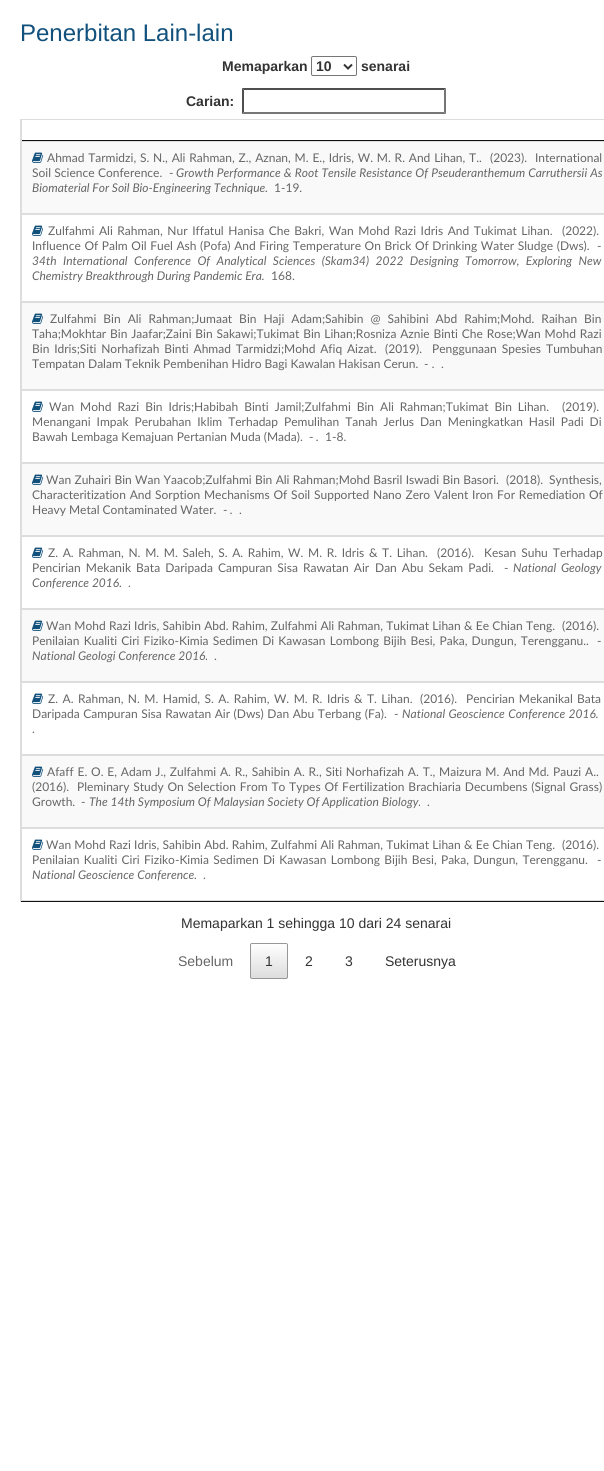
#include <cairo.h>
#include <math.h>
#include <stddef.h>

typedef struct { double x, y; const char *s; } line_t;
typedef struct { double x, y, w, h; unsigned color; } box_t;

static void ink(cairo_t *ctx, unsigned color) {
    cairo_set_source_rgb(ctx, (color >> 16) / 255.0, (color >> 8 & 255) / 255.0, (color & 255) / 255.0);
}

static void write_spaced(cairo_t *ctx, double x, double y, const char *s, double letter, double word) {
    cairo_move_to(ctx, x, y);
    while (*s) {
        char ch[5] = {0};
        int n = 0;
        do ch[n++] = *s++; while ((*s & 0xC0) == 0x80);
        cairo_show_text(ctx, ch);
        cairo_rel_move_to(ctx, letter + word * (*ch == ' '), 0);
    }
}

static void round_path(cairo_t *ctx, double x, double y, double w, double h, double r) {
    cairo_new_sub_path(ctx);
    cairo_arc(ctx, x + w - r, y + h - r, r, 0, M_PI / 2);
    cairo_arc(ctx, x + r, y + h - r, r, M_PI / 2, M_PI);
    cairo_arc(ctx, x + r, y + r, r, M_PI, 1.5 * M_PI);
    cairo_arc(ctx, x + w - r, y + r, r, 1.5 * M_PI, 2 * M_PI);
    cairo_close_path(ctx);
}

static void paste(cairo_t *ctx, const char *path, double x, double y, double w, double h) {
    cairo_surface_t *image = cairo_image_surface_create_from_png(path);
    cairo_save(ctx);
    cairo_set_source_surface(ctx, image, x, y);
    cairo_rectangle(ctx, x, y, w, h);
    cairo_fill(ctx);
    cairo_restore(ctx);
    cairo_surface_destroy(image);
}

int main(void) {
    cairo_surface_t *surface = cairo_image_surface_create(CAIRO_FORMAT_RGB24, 604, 1471);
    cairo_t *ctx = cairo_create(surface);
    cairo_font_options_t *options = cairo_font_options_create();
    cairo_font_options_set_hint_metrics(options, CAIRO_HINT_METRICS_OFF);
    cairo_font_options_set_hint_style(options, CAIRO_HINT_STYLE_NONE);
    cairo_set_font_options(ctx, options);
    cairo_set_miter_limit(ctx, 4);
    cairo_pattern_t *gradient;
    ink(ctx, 0xFFFFFF);
    cairo_paint(ctx);
    cairo_select_font_face(ctx, "Liberation Sans", CAIRO_FONT_SLANT_NORMAL, CAIRO_FONT_WEIGHT_NORMAL);
    cairo_set_font_size(ctx, 24);
    ink(ctx, 0x11517C);
    cairo_move_to(ctx, 20, 41);
    cairo_show_text(ctx, "Penerbitan Lain-lain");
    cairo_select_font_face(ctx, "Liberation Sans", CAIRO_FONT_SLANT_NORMAL, CAIRO_FONT_WEIGHT_BOLD);
    cairo_set_font_size(ctx, 14);
    ink(ctx, 0x333333);
    cairo_move_to(ctx, 222, 71);
    cairo_show_text(ctx, "Memaparkan");
    round_path(ctx, 311.5, 56.5, 45, 19, 1.5);
    ink(ctx, 0x767676);
    cairo_set_line_width(ctx, 1);
    cairo_stroke(ctx);
    cairo_new_path(ctx);
    cairo_move_to(ctx, 344, 64.5);
    cairo_line_to(ctx, 348, 68.5);
    cairo_line_to(ctx, 352, 64.5);
    ink(ctx, 0x333333);
    cairo_set_line_width(ctx, 2);
    cairo_stroke(ctx);
    {
        static const line_t items[] = {
            {316, 71, "10"},
            {361, 71, "senarai"},
            {186, 106, "Carian:"},
        };
        for (size_t i = 0; i < sizeof items / sizeof *items; i++) {
            cairo_move_to(ctx, items[i].x, items[i].y);
            cairo_show_text(ctx, items[i].s);
        }
    }
    ink(ctx, 0x4F4F4F);
    cairo_new_path(ctx);
    cairo_move_to(ctx, 242, 88);
    cairo_line_to(ctx, 446, 88);
    cairo_line_to(ctx, 444, 90);
    cairo_line_to(ctx, 244, 90);
    cairo_close_path(ctx);
    cairo_fill(ctx);
    ink(ctx, 0x767676);
    cairo_new_path(ctx);
    cairo_move_to(ctx, 446, 88);
    cairo_line_to(ctx, 446, 114);
    cairo_line_to(ctx, 444, 112);
    cairo_line_to(ctx, 444, 90);
    cairo_close_path(ctx);
    cairo_fill(ctx);
    cairo_new_path(ctx);
    cairo_move_to(ctx, 446, 114);
    cairo_line_to(ctx, 242, 114);
    cairo_line_to(ctx, 244, 112);
    cairo_line_to(ctx, 444, 112);
    cairo_close_path(ctx);
    cairo_fill(ctx);
    ink(ctx, 0x4F4F4F);
    cairo_new_path(ctx);
    cairo_move_to(ctx, 242, 114);
    cairo_line_to(ctx, 242, 88);
    cairo_line_to(ctx, 244, 90);
    cairo_line_to(ctx, 244, 112);
    cairo_close_path(ctx);
    cairo_fill(ctx);
    {
        static const box_t items[] = {
            {20, 119, 584, 1, 0xDDDDDD},
            {20, 901, 584, 1, 0x111111},
            {20, 119, 1, 783, 0xDDDDDD},
            {21, 140, 583, 1, 0x111111},
            {21, 120, 1, 21, 0xDDDDDD},
        };
        for (size_t i = 0; i < sizeof items / sizeof *items; i++) {
            ink(ctx, items[i].color);
            cairo_rectangle(ctx, items[i].x, items[i].y, items[i].w, items[i].h);
            cairo_fill(ctx);
        }
    }
    ink(ctx, 0xF9F9F9);
    cairo_rectangle(ctx, 21.5, 141.5, 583, 72);
    cairo_fill_preserve(ctx);
    ink(ctx, 0xDDDDDD);
    cairo_set_line_width(ctx, 1);
    cairo_stroke(ctx);
    paste(ctx, "media/1.png", 32, 152, 12, 11);
    cairo_select_font_face(ctx, "Lato", CAIRO_FONT_SLANT_NORMAL, CAIRO_FONT_WEIGHT_NORMAL);
    cairo_set_font_size(ctx, 12);
    ink(ctx, 0x666666);
    write_spaced(ctx, 47, 162, "Ahmad Tarmidzi, S. N., Ali Rahman, Z., Aznan, M. E., Idris, W. M. R. And Lihan, T..", 0, 0.75);
    cairo_move_to(ctx, 490, 162);
    cairo_show_text(ctx, "(2023).");
    cairo_move_to(ctx, 535, 162);
    cairo_show_text(ctx, "International");
    write_spaced(ctx, 32, 177, "Soil Science Conference.", 0, 0.25);
    cairo_move_to(ctx, 169, 177);
    cairo_show_text(ctx, "-");
    cairo_select_font_face(ctx, "Lato", CAIRO_FONT_SLANT_ITALIC, CAIRO_FONT_WEIGHT_NORMAL);
    write_spaced(ctx, 176, 177, "Growth Performance & Root Tensile Resistance Of Pseuderanthemum Carruthersii As", 0, 0.25);
    cairo_move_to(ctx, 32, 192);
    cairo_show_text(ctx, "Biomaterial For Soil Bio-Engineering Technique.");
    cairo_select_font_face(ctx, "Lato", CAIRO_FONT_SLANT_NORMAL, CAIRO_FONT_WEIGHT_NORMAL);
    cairo_move_to(ctx, 274, 192);
    cairo_show_text(ctx, "1-19.");
    cairo_rectangle(ctx, 21.5, 214.5, 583, 87);
    ink(ctx, 0xDDDDDD);
    cairo_stroke(ctx);
    paste(ctx, "media/2.png", 32, 225, 12, 11);
    ink(ctx, 0x666666);
    write_spaced(ctx, 48, 235, "Zulfahmi Ali Rahman, Nur Iffatul Hanisa Che Bakri, Wan Mohd Razi Idris And Tukimat Lihan.", 0, 1.5);
    cairo_move_to(ctx, 562, 235);
    cairo_show_text(ctx, "(2022).");
    write_spaced(ctx, 32, 250, "Influence Of Palm Oil Fuel Ash (Pofa) And Firing Temperature On Brick Of Drinking Water Sludge (Dws).", 0, 0.5);
    cairo_move_to(ctx, 597, 250);
    cairo_show_text(ctx, "-");
    cairo_select_font_face(ctx, "Lato", CAIRO_FONT_SLANT_ITALIC, CAIRO_FONT_WEIGHT_NORMAL);
    write_spaced(ctx, 32, 265, "34th International Conference Of Analytical Sciences (Skam34) 2022 Designing Tomorrow, Exploring New", 0, 3.6);
    cairo_move_to(ctx, 32, 280);
    cairo_show_text(ctx, "Chemistry Breakthrough During Pandemic Era.");
    cairo_select_font_face(ctx, "Lato", CAIRO_FONT_SLANT_NORMAL, CAIRO_FONT_WEIGHT_NORMAL);
    cairo_move_to(ctx, 271, 280);
    cairo_show_text(ctx, "168.");
    ink(ctx, 0xF9F9F9);
    cairo_rectangle(ctx, 21.5, 302.5, 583, 87);
    cairo_fill_preserve(ctx);
    ink(ctx, 0xDDDDDD);
    cairo_stroke(ctx);
    paste(ctx, "media/1.png", 32, 313, 12, 11);
    ink(ctx, 0x666666);
    write_spaced(ctx, 50, 323, "Zulfahmi Bin Ali Rahman;Jumaat Bin Haji Adam;Sahibin @ Sahibini Abd Rahim;Mohd. Raihan Bin", 0, 3.9);
    write_spaced(ctx, 32, 338, "Taha;Mokhtar Bin Jaafar;Zaini Bin Sakawi;Tukimat Bin Lihan;Rosniza Aznie Binti Che Rose;Wan Mohd Razi", 0, 0.75);
    write_spaced(ctx, 32, 353, "Bin Idris;Siti Norhafizah Binti Ahmad Tarmidzi;Mohd Afiq Aizat.", 0, 1.75);
    cairo_move_to(ctx, 385, 353);
    cairo_show_text(ctx, "(2019).");
    write_spaced(ctx, 432, 353, "Penggunaan Spesies Tumbuhan", 0, 2);
    cairo_move_to(ctx, 32, 368);
    cairo_show_text(ctx, "Tempatan Dalam Teknik Pembenihan Hidro Bagi Kawalan Hakisan Cerun.");
    cairo_move_to(ctx, 424, 368);
    cairo_show_text(ctx, "-");
    cairo_select_font_face(ctx, "Lato", CAIRO_FONT_SLANT_ITALIC, CAIRO_FONT_WEIGHT_NORMAL);
    cairo_move_to(ctx, 432, 368);
    cairo_show_text(ctx, ".");
    cairo_select_font_face(ctx, "Lato", CAIRO_FONT_SLANT_NORMAL, CAIRO_FONT_WEIGHT_NORMAL);
    cairo_move_to(ctx, 441, 368);
    cairo_show_text(ctx, ".");
    cairo_rectangle(ctx, 21.5, 390.5, 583, 72);
    ink(ctx, 0xDDDDDD);
    cairo_stroke(ctx);
    paste(ctx, "media/2.png", 32, 401, 12, 11);
    ink(ctx, 0x666666);
    write_spaced(ctx, 49, 411, "Wan Mohd Razi Bin Idris;Habibah Binti Jamil;Zulfahmi Bin Ali Rahman;Tukimat Bin Lihan.", 0, 2.9);
    cairo_move_to(ctx, 562, 411);
    cairo_show_text(ctx, "(2019).");
    write_spaced(ctx, 32, 426, "Menangani Impak Perubahan Iklim Terhadap Pemulihan Tanah Jerlus Dan Meningkatkan Hasil Padi Di", 0, 2.9);
    {
        static const line_t items[] = {
            {32, 441, "Bawah Lembaga Kemajuan Pertanian Muda (Mada)."},
            {309, 441, "-"},
            {325, 441, "1-8."},
        };
        for (size_t i = 0; i < sizeof items / sizeof *items; i++) {
            cairo_move_to(ctx, items[i].x, items[i].y);
            cairo_show_text(ctx, items[i].s);
        }
    }
    cairo_select_font_face(ctx, "Lato", CAIRO_FONT_SLANT_ITALIC, CAIRO_FONT_WEIGHT_NORMAL);
    cairo_move_to(ctx, 316, 441);
    cairo_show_text(ctx, ".");
    ink(ctx, 0xF9F9F9);
    cairo_rectangle(ctx, 21.5, 463.5, 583, 72);
    cairo_fill_preserve(ctx);
    ink(ctx, 0xDDDDDD);
    cairo_stroke(ctx);
    paste(ctx, "media/1.png", 32, 474, 12, 11);
    cairo_select_font_face(ctx, "Lato", CAIRO_FONT_SLANT_NORMAL, CAIRO_FONT_WEIGHT_NORMAL);
    ink(ctx, 0x666666);
    write_spaced(ctx, 46, 484, "Wan Zuhairi Bin Wan Yaacob;Zulfahmi Bin Ali Rahman;Mohd Basril Iswadi Bin Basori.", 0, 0.25);
    cairo_move_to(ctx, 506, 484);
    cairo_show_text(ctx, "(2018).");
    cairo_move_to(ctx, 549, 484);
    cairo_show_text(ctx, "Synthesis,");
    write_spaced(ctx, 32, 499, "Characteritization And Sorption Mechanisms Of Soil Supported Nano Zero Valent Iron For Remediation Of", 0, 0.75);
    cairo_move_to(ctx, 32, 514);
    cairo_show_text(ctx, "Heavy Metal Contaminated Water.");
    cairo_move_to(ctx, 223, 514);
    cairo_show_text(ctx, "-");
    cairo_select_font_face(ctx, "Lato", CAIRO_FONT_SLANT_ITALIC, CAIRO_FONT_WEIGHT_NORMAL);
    cairo_move_to(ctx, 230, 514);
    cairo_show_text(ctx, ".");
    cairo_select_font_face(ctx, "Lato", CAIRO_FONT_SLANT_NORMAL, CAIRO_FONT_WEIGHT_NORMAL);
    cairo_move_to(ctx, 239, 514);
    cairo_show_text(ctx, ".");
    cairo_rectangle(ctx, 21.5, 536.5, 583, 72);
    ink(ctx, 0xDDDDDD);
    cairo_stroke(ctx);
    paste(ctx, "media/2.png", 32, 547, 12, 11);
    ink(ctx, 0x666666);
    write_spaced(ctx, 48, 557, "Z. A. Rahman, N. M. M. Saleh, S. A. Rahim, W. M. R. Idris & T. Lihan.", 0, 1.6);
    cairo_move_to(ctx, 437, 557);
    cairo_show_text(ctx, "(2016).");
    {
        static const line_t items[] = {
            {484, 557, "Kesan Suhu Terhadap"},
            {32, 572, "Pencirian Mekanik Bata Daripada Campuran Sisa Rawatan Air"},
            {375, 572, "Dan Abu Sekam Padi."},
        };
        for (size_t i = 0; i < sizeof items / sizeof *items; i++) {
            write_spaced(ctx, items[i].x, items[i].y, items[i].s, 0, 2);
        }
    }
    cairo_move_to(ctx, 504, 572);
    cairo_show_text(ctx, "-");
    cairo_select_font_face(ctx, "Lato", CAIRO_FONT_SLANT_ITALIC, CAIRO_FONT_WEIGHT_NORMAL);
    write_spaced(ctx, 513, 572, "National Geology", 0, 2);
    cairo_move_to(ctx, 32, 587);
    cairo_show_text(ctx, "Conference 2016.");
    cairo_select_font_face(ctx, "Lato", CAIRO_FONT_SLANT_NORMAL, CAIRO_FONT_WEIGHT_NORMAL);
    cairo_move_to(ctx, 128, 587);
    cairo_show_text(ctx, ".");
    ink(ctx, 0xF9F9F9);
    cairo_rectangle(ctx, 21.5, 609.5, 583, 72);
    cairo_fill_preserve(ctx);
    ink(ctx, 0xDDDDDD);
    cairo_stroke(ctx);
    paste(ctx, "media/1.png", 32, 620, 12, 11);
    ink(ctx, 0x666666);
    write_spaced(ctx, 46, 630, "Wan Mohd Razi Idris, Sahibin Abd. Rahim, Zulfahmi Ali Rahman, Tukimat Lihan & Ee Chian Teng.", 0, 0.2);
    cairo_move_to(ctx, 562, 630);
    cairo_show_text(ctx, "(2016).");
    write_spaced(ctx, 32, 645, "Penilaian Kualiti Ciri Fiziko-Kimia Sedimen Di Kawasan Lombong Bijih Besi, Paka, Dungun, Terengganu..", 0, 1.1);
    cairo_move_to(ctx, 597, 645);
    cairo_show_text(ctx, "-");
    cairo_select_font_face(ctx, "Lato", CAIRO_FONT_SLANT_ITALIC, CAIRO_FONT_WEIGHT_NORMAL);
    cairo_move_to(ctx, 32, 660);
    cairo_show_text(ctx, "National Geologi Conference 2016.");
    cairo_select_font_face(ctx, "Lato", CAIRO_FONT_SLANT_NORMAL, CAIRO_FONT_WEIGHT_NORMAL);
    cairo_move_to(ctx, 214, 660);
    cairo_show_text(ctx, ".");
    cairo_rectangle(ctx, 21.5, 682.5, 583, 72);
    ink(ctx, 0xDDDDDD);
    cairo_stroke(ctx);
    paste(ctx, "media/2.png", 32, 693, 12, 11);
    ink(ctx, 0x666666);
    write_spaced(ctx, 48, 703, "Z. A. Rahman, N. M. Hamid, S. A. Rahim, W. M. R. Idris & T. Lihan.", 0, 1.4);
    cairo_move_to(ctx, 420, 703);
    cairo_show_text(ctx, "(2016).");
    write_spaced(ctx, 466, 703, "Pencirian Mekanikal Bata", 0, 1);
    write_spaced(ctx, 32, 718, "Daripada Campuran Sisa Rawatan Air (Dws) Dan Abu Terbang (Fa).", 0, 0.5);
    cairo_move_to(ctx, 394, 718);
    cairo_show_text(ctx, "-");
    cairo_select_font_face(ctx, "Lato", CAIRO_FONT_SLANT_ITALIC, CAIRO_FONT_WEIGHT_NORMAL);
    write_spaced(ctx, 402, 718, "National Geoscience Conference 2016.", 0, 0.5);
    cairo_select_font_face(ctx, "Lato", CAIRO_FONT_SLANT_NORMAL, CAIRO_FONT_WEIGHT_NORMAL);
    cairo_move_to(ctx, 32, 733);
    cairo_show_text(ctx, ".");
    ink(ctx, 0xF9F9F9);
    cairo_rectangle(ctx, 21.5, 755.5, 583, 72);
    cairo_fill_preserve(ctx);
    ink(ctx, 0xDDDDDD);
    cairo_stroke(ctx);
    paste(ctx, "media/1.png", 32, 766, 12, 11);
    ink(ctx, 0x666666);
    write_spaced(ctx, 47, 776, "Afaff E. O. E, Adam J., Zulfahmi A. R., Sahibin A. R., Siti Norhafizah A. T., Maizura M. And Md. Pauzi A..", 0, 0.75);
    cairo_move_to(ctx, 32, 791);
    cairo_show_text(ctx, "(2016).");
    write_spaced(ctx, 77, 791, "Pleminary Study On Selection From To Types Of Fertilization Brachiaria Decumbens (Signal Grass)", 0, 0.75);
    cairo_move_to(ctx, 32, 806);
    cairo_show_text(ctx, "Growth.");
    cairo_move_to(ctx, 81, 806);
    cairo_show_text(ctx, "-");
    cairo_select_font_face(ctx, "Lato", CAIRO_FONT_SLANT_ITALIC, CAIRO_FONT_WEIGHT_NORMAL);
    cairo_move_to(ctx, 89, 806);
    cairo_show_text(ctx, "The 14th Symposium Of Malaysian Society Of Application Biology.");
    cairo_select_font_face(ctx, "Lato", CAIRO_FONT_SLANT_NORMAL, CAIRO_FONT_WEIGHT_NORMAL);
    cairo_move_to(ctx, 427, 806);
    cairo_show_text(ctx, ".");
    cairo_rectangle(ctx, 21.5, 828.5, 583, 72);
    ink(ctx, 0xDDDDDD);
    cairo_stroke(ctx);
    paste(ctx, "media/2.png", 32, 839, 12, 11);
    ink(ctx, 0x666666);
    write_spaced(ctx, 46, 849, "Wan Mohd Razi Idris, Sahibin Abd. Rahim, Zulfahmi Ali Rahman, Tukimat Lihan & Ee Chian Teng.", 0, 0.2);
    cairo_move_to(ctx, 562, 849);
    cairo_show_text(ctx, "(2016).");
    write_spaced(ctx, 32, 864, "Penilaian Kualiti Ciri Fiziko-Kimia Sedimen Di Kawasan Lombong Bijih Besi, Paka, Dungun, Terengganu.", 0, 1.25);
    cairo_move_to(ctx, 597, 864);
    cairo_show_text(ctx, "-");
    cairo_select_font_face(ctx, "Lato", CAIRO_FONT_SLANT_ITALIC, CAIRO_FONT_WEIGHT_NORMAL);
    cairo_move_to(ctx, 32, 879);
    cairo_show_text(ctx, "National Geoscience Conference.");
    cairo_select_font_face(ctx, "Lato", CAIRO_FONT_SLANT_NORMAL, CAIRO_FONT_WEIGHT_NORMAL);
    cairo_move_to(ctx, 203, 879);
    cairo_show_text(ctx, ".");
    cairo_select_font_face(ctx, "Liberation Sans", CAIRO_FONT_SLANT_NORMAL, CAIRO_FONT_WEIGHT_NORMAL);
    cairo_set_font_size(ctx, 14);
    ink(ctx, 0x333333);
    cairo_move_to(ctx, 181, 928);
    cairo_show_text(ctx, "Memaparkan 1 sehingga 10 dari 24 senarai");
    ink(ctx, 0x666666);
    cairo_move_to(ctx, 178, 966);
    cairo_show_text(ctx, "Sebelum");
    cairo_save(ctx);
    round_path(ctx, 250, 943, 38, 36, 2);
    cairo_clip(ctx);
    gradient = cairo_pattern_create_linear(269, 944, 269, 978);
    cairo_pattern_add_color_stop_rgba(gradient, 0, 1, 1, 1, 1);
    cairo_pattern_add_color_stop_rgba(gradient, 1, 0.863, 0.863, 0.863, 1);
    cairo_set_source(ctx, gradient);
    cairo_pattern_destroy(gradient);
    cairo_rectangle(ctx, 250, 944, 38, 34);
    cairo_fill(ctx);
    cairo_restore(ctx);
    round_path(ctx, 250.5, 943.5, 37, 35, 1.5);
    ink(ctx, 0x979797);
    cairo_stroke(ctx);
    ink(ctx, 0x333333);
    {
        static const line_t items[] = {
            {265, 966, "1"},
            {305, 966, "2"},
            {345, 966, "3"},
            {385, 966, "Seterusnya"},
        };
        for (size_t i = 0; i < sizeof items / sizeof *items; i++) {
            cairo_move_to(ctx, items[i].x, items[i].y);
            cairo_show_text(ctx, items[i].s);
        }
    }
    cairo_surface_write_to_png(surface, "image.png");
    cairo_font_options_destroy(options);
    cairo_destroy(ctx);
    cairo_surface_destroy(surface);
    return 0;
}
